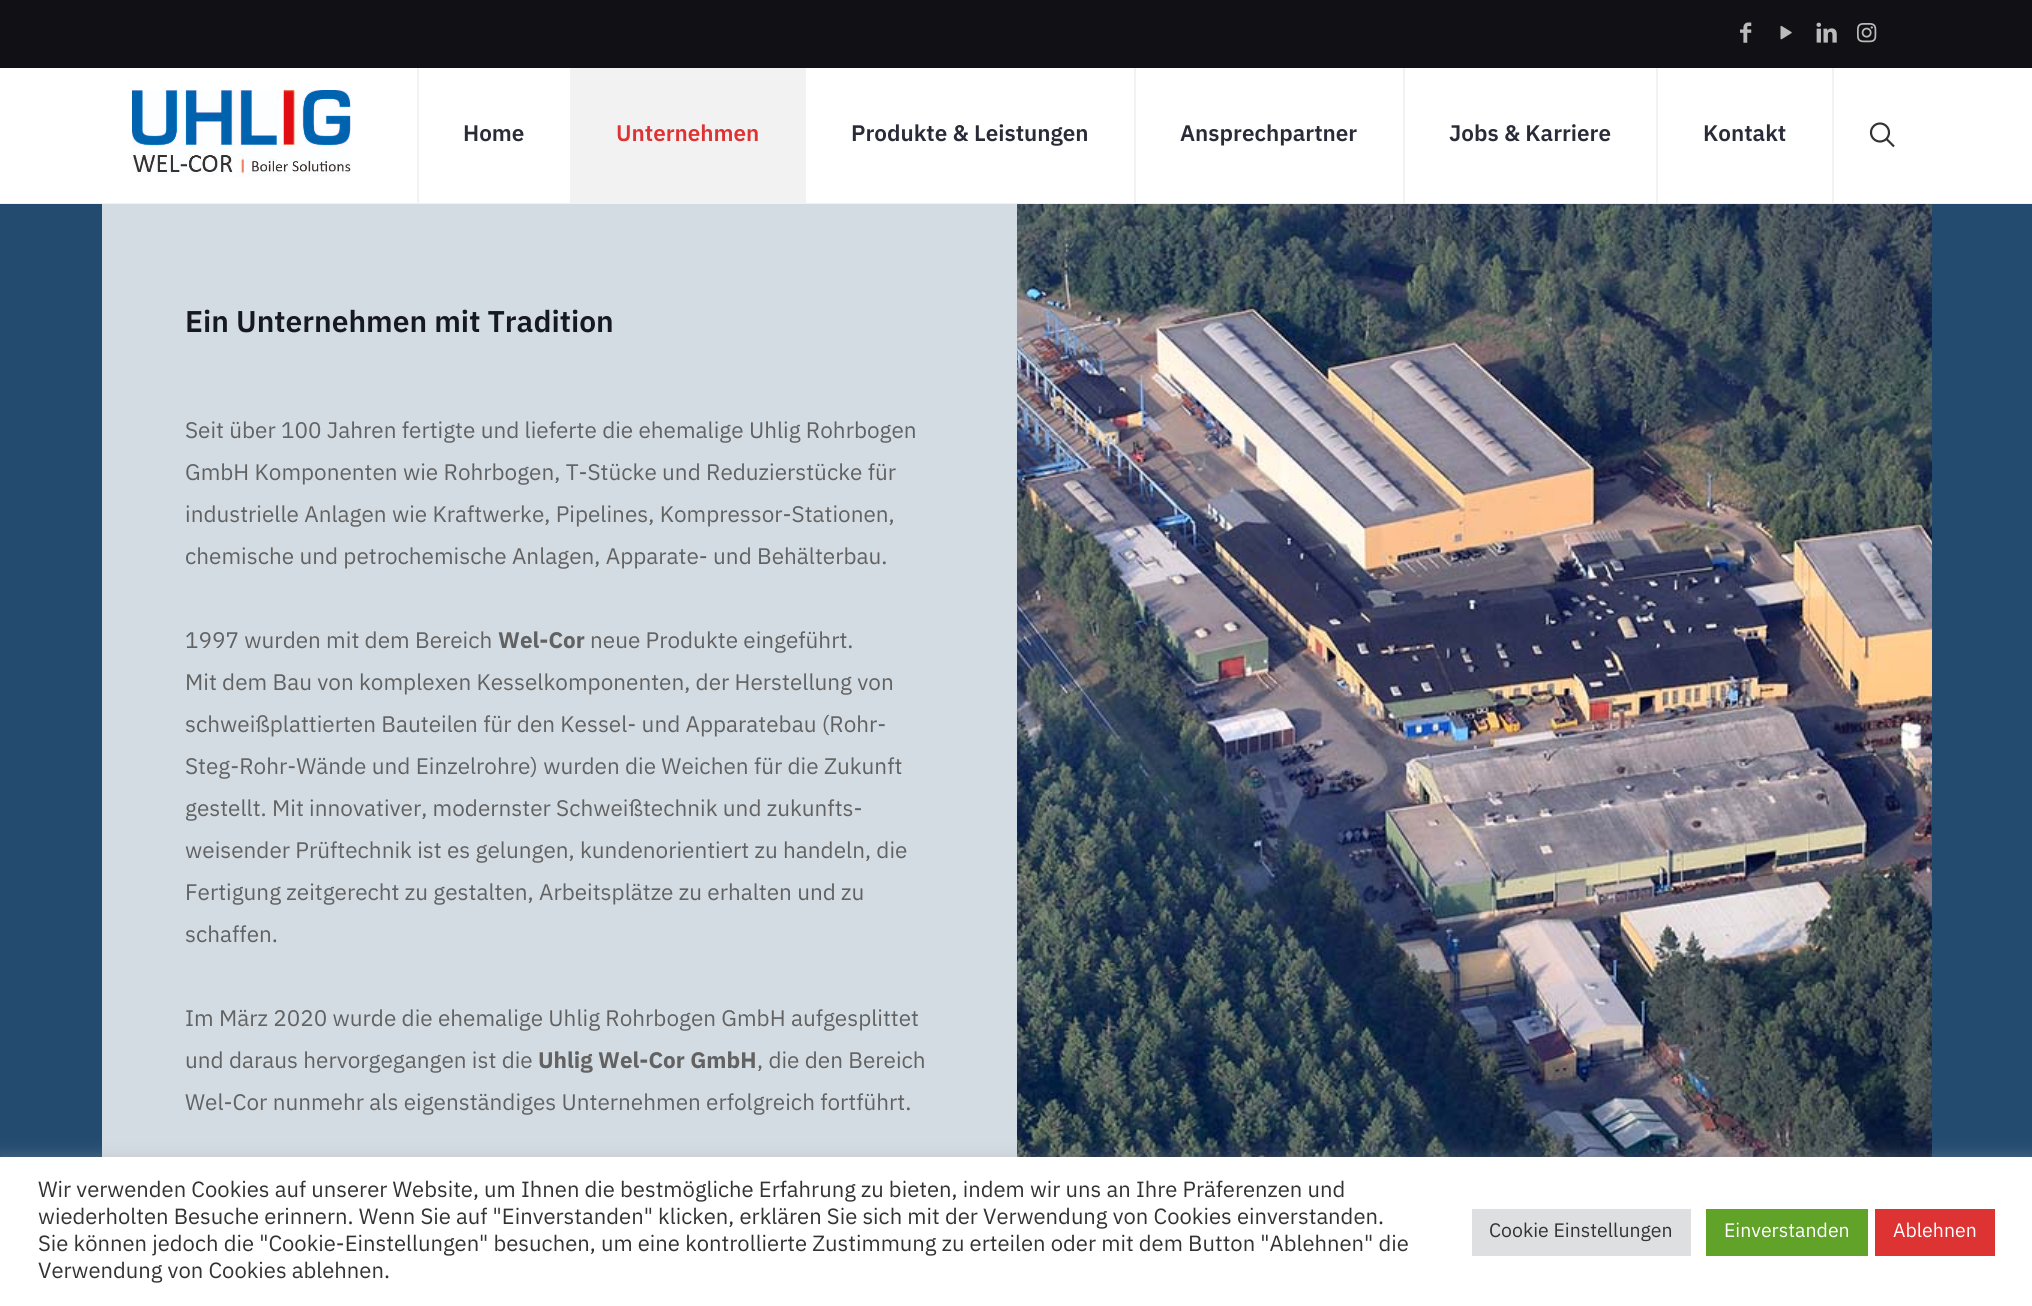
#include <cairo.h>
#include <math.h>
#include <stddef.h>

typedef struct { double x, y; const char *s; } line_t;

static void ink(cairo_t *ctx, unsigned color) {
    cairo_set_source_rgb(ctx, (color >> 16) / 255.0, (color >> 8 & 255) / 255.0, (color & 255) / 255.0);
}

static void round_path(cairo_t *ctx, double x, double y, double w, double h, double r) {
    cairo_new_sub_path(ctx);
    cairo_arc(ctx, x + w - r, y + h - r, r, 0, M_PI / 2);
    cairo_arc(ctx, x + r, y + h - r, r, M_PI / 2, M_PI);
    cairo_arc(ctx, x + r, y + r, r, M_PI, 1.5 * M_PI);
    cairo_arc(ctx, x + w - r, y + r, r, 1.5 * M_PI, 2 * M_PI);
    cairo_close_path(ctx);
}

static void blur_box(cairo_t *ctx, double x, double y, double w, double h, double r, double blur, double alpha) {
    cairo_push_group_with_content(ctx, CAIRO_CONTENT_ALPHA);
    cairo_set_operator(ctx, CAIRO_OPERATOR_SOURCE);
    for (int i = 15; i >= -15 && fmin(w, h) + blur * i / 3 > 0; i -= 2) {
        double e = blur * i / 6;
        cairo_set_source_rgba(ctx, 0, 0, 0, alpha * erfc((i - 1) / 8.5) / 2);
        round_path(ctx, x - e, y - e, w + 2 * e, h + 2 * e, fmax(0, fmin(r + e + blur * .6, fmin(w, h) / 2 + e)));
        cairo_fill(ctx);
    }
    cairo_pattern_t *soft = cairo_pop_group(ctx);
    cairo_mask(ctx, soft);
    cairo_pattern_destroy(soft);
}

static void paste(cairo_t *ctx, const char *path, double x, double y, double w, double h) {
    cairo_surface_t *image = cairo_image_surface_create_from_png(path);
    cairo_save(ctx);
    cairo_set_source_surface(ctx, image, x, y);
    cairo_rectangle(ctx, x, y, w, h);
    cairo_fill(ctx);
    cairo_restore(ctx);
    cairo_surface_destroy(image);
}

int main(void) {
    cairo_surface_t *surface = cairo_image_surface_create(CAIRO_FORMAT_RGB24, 2032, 1306);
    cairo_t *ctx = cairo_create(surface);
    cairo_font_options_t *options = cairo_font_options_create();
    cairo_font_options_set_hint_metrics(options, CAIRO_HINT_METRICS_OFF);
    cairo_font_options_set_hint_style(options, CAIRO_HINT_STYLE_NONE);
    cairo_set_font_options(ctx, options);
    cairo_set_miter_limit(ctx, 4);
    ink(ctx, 0x101015);
    cairo_paint(ctx);
    paste(ctx, "media/1.png", 1740, 22, 12, 21);
    paste(ctx, "media/2.png", 1780, 25, 12, 15);
    paste(ctx, "media/3.png", 1816, 22, 21, 21);
    paste(ctx, "media/4.png", 1857, 23, 20, 20);
    ink(ctx, 0xFFFFFF);
    cairo_rectangle(ctx, 0, 68, 2032, 135);
    cairo_fill(ctx);
    ink(ctx, 0xF2F2F2);
    cairo_rectangle(ctx, 0, 203, 2032, 1);
    cairo_fill(ctx);
    paste(ctx, "media/5.png", 132, 90, 219, 87);
    cairo_rectangle(ctx, 570, 68, 236, 135);
    cairo_fill(ctx);
    cairo_rectangle(ctx, 417, 68, 2, 135);
    cairo_fill(ctx);
    cairo_select_font_face(ctx, "IBM Plex Sans Thai Looped SemiBold", CAIRO_FONT_SLANT_NORMAL, CAIRO_FONT_WEIGHT_NORMAL);
    cairo_set_font_size(ctx, 22.5);
    ink(ctx, 0x2A2B39);
    cairo_move_to(ctx, 463, 141);
    cairo_show_text(ctx, "Home");
    ink(ctx, 0xDD3333);
    cairo_move_to(ctx, 616, 141);
    cairo_show_text(ctx, "Unternehmen");
    ink(ctx, 0xF2F2F2);
    cairo_rectangle(ctx, 1134, 68, 2, 135);
    cairo_fill(ctx);
    ink(ctx, 0x2A2B39);
    cairo_move_to(ctx, 851, 141);
    cairo_show_text(ctx, "Produkte & Leistungen");
    ink(ctx, 0xF2F2F2);
    cairo_rectangle(ctx, 1403, 68, 2, 135);
    cairo_fill(ctx);
    ink(ctx, 0x2A2B39);
    cairo_move_to(ctx, 1180, 141);
    cairo_show_text(ctx, "Ansprechpartner");
    ink(ctx, 0xF2F2F2);
    cairo_rectangle(ctx, 1656, 68, 2, 135);
    cairo_fill(ctx);
    ink(ctx, 0x2A2B39);
    cairo_move_to(ctx, 1449, 141);
    cairo_show_text(ctx, "Jobs & Karriere");
    cairo_move_to(ctx, 1703, 141);
    cairo_show_text(ctx, "Kontakt");
    ink(ctx, 0xF2F2F2);
    cairo_rectangle(ctx, 1832, 68, 2, 135);
    cairo_fill(ctx);
    cairo_arc(ctx, 1880, 132.5, 9, 0, 2 * M_PI);
    ink(ctx, 0x333333);
    cairo_set_line_width(ctx, 2.2);
    cairo_stroke(ctx);
    cairo_new_path(ctx);
    cairo_move_to(ctx, 1886.5, 139);
    cairo_line_to(ctx, 1894, 146.5);
    cairo_stroke(ctx);
    ink(ctx, 0x234B70);
    cairo_rectangle(ctx, 0, 204, 2032, 953);
    cairo_fill(ctx);
    ink(ctx, 0xD3DCE3);
    cairo_rectangle(ctx, 102, 204, 915, 953);
    cairo_fill(ctx);
    cairo_set_font_size(ctx, 30);
    ink(ctx, 0x161922);
    cairo_move_to(ctx, 185, 332);
    cairo_show_text(ctx, "Ein Unternehmen mit Tradition");
    cairo_select_font_face(ctx, "IBM Plex Sans Thai Looped", CAIRO_FONT_SLANT_NORMAL, CAIRO_FONT_WEIGHT_NORMAL);
    cairo_set_font_size(ctx, 22.5);
    ink(ctx, 0x626262);
    {
        static const line_t items[] = {
            {185, 438, "Seit über 100 Jahren fertigte und lieferte die ehemalige Uhlig Rohrbogen"},
            {185, 480, "GmbH Komponenten wie Rohrbogen, T-Stücke und Reduzierstücke für"},
            {185, 522, "industrielle Anlagen wie Kraftwerke, Pipelines, Kompressor-Stationen,"},
            {185, 564, "chemische und petrochemische Anlagen, Apparate- und Behälterbau."},
            {185, 648, "1997 wurden mit dem Bereich"},
        };
        for (size_t i = 0; i < sizeof items / sizeof *items; i++) {
            cairo_move_to(ctx, items[i].x, items[i].y);
            cairo_show_text(ctx, items[i].s);
        }
    }
    cairo_select_font_face(ctx, "IBM Plex Sans Thai Looped", CAIRO_FONT_SLANT_NORMAL, CAIRO_FONT_WEIGHT_BOLD);
    cairo_move_to(ctx, 498, 648);
    cairo_show_text(ctx, "Wel-Cor");
    cairo_select_font_face(ctx, "IBM Plex Sans Thai Looped", CAIRO_FONT_SLANT_NORMAL, CAIRO_FONT_WEIGHT_NORMAL);
    {
        static const line_t items[] = {
            {590, 648, "neue Produkte eingeführt."},
            {185, 690, "Mit dem Bau von komplexen Kesselkomponenten, der Herstellung von"},
            {185, 732, "schweißplattierten Bauteilen für den Kessel- und Apparatebau (Rohr-"},
            {185, 774, "Steg-Rohr-Wände und Einzelrohre) wurden die Weichen für die Zukunft"},
            {185, 816, "gestellt. Mit innovativer, modernster Schweißtechnik und zukunfts-"},
            {185, 858, "weisender Prüftechnik ist es gelungen, kundenorientiert zu handeln, die"},
            {185, 900, "Fertigung zeitgerecht zu gestalten, Arbeitsplätze zu erhalten und zu"},
            {185, 942, "schaffen."},
            {185, 1026, "Im März 2020 wurde die ehemalige Uhlig Rohrbogen GmbH aufgesplittet"},
            {185, 1068, "und daraus hervorgegangen ist die"},
        };
        for (size_t i = 0; i < sizeof items / sizeof *items; i++) {
            cairo_move_to(ctx, items[i].x, items[i].y);
            cairo_show_text(ctx, items[i].s);
        }
    }
    cairo_select_font_face(ctx, "IBM Plex Sans Thai Looped", CAIRO_FONT_SLANT_NORMAL, CAIRO_FONT_WEIGHT_BOLD);
    cairo_move_to(ctx, 538, 1068);
    cairo_show_text(ctx, "Uhlig Wel-Cor GmbH");
    cairo_select_font_face(ctx, "IBM Plex Sans Thai Looped", CAIRO_FONT_SLANT_NORMAL, CAIRO_FONT_WEIGHT_NORMAL);
    cairo_move_to(ctx, 757, 1068);
    cairo_show_text(ctx, ", die den Bereich");
    cairo_move_to(ctx, 185, 1110);
    cairo_show_text(ctx, "Wel-Cor nunmehr als eigenständiges Unternehmen erfolgreich fortführt.");
    paste(ctx, "media/6.png", 1017, 204, 915, 953);
    ink(ctx, 0xACABAB);
    blur_box(ctx, 0, 1155, 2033, 150, 0, 7.5, 0.3);
    ink(ctx, 0xFFFFFF);
    cairo_rectangle(ctx, 0, 1157, 2032, 149);
    cairo_fill(ctx);
    cairo_set_font_size(ctx, 22);
    ink(ctx, 0x333333);
    {
        static const line_t items[] = {
            {38, 1197, "Wir verwenden Cookies auf unserer Website, um Ihnen die bestmögliche Erfahrung zu bieten, indem wir uns an Ihre Präferenzen und"},
            {38, 1224, "wiederholten Besuche erinnern. Wenn Sie auf \"Einverstanden\" klicken, erklären Sie sich mit der Verwendung von Cookies einverstanden."},
            {38, 1251, "Sie können jedoch die \"Cookie-Einstellungen\" besuchen, um eine kontrollierte Zustimmung zu erteilen oder mit dem Button \"Ablehnen\" die"},
            {38, 1278, "Verwendung von Cookies ablehnen."},
        };
        for (size_t i = 0; i < sizeof items / sizeof *items; i++) {
            cairo_move_to(ctx, items[i].x, items[i].y);
            cairo_show_text(ctx, items[i].s);
        }
    }
    ink(ctx, 0xDEDFE0);
    cairo_rectangle(ctx, 1472, 1209, 219, 47);
    cairo_fill(ctx);
    cairo_set_font_size(ctx, 19.5);
    ink(ctx, 0x333333);
    cairo_move_to(ctx, 1489, 1237);
    cairo_show_text(ctx, "Cookie Einstellungen");
    ink(ctx, 0x61A229);
    cairo_rectangle(ctx, 1706, 1209, 162, 47);
    cairo_fill(ctx);
    ink(ctx, 0xFFFFFF);
    cairo_move_to(ctx, 1724, 1237);
    cairo_show_text(ctx, "Einverstanden");
    ink(ctx, 0xDD3333);
    cairo_rectangle(ctx, 1875, 1209, 120, 47);
    cairo_fill(ctx);
    ink(ctx, 0xFFFFFF);
    cairo_move_to(ctx, 1893, 1237);
    cairo_show_text(ctx, "Ablehnen");
    cairo_surface_write_to_png(surface, "image.png");
    cairo_font_options_destroy(options);
    cairo_destroy(ctx);
    cairo_surface_destroy(surface);
    return 0;
}
